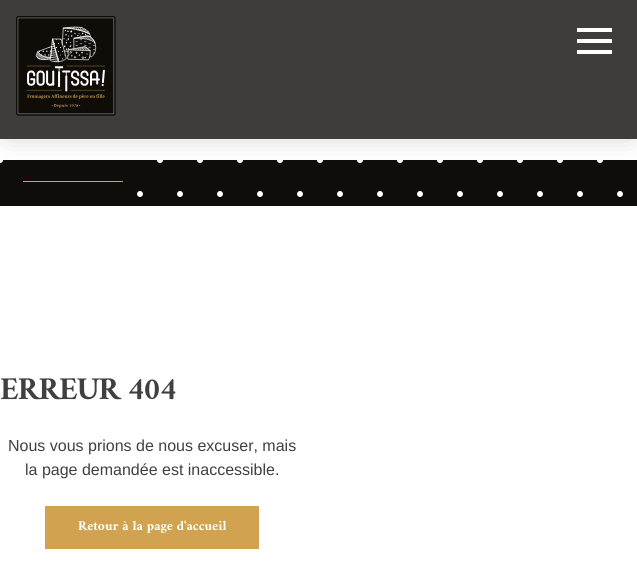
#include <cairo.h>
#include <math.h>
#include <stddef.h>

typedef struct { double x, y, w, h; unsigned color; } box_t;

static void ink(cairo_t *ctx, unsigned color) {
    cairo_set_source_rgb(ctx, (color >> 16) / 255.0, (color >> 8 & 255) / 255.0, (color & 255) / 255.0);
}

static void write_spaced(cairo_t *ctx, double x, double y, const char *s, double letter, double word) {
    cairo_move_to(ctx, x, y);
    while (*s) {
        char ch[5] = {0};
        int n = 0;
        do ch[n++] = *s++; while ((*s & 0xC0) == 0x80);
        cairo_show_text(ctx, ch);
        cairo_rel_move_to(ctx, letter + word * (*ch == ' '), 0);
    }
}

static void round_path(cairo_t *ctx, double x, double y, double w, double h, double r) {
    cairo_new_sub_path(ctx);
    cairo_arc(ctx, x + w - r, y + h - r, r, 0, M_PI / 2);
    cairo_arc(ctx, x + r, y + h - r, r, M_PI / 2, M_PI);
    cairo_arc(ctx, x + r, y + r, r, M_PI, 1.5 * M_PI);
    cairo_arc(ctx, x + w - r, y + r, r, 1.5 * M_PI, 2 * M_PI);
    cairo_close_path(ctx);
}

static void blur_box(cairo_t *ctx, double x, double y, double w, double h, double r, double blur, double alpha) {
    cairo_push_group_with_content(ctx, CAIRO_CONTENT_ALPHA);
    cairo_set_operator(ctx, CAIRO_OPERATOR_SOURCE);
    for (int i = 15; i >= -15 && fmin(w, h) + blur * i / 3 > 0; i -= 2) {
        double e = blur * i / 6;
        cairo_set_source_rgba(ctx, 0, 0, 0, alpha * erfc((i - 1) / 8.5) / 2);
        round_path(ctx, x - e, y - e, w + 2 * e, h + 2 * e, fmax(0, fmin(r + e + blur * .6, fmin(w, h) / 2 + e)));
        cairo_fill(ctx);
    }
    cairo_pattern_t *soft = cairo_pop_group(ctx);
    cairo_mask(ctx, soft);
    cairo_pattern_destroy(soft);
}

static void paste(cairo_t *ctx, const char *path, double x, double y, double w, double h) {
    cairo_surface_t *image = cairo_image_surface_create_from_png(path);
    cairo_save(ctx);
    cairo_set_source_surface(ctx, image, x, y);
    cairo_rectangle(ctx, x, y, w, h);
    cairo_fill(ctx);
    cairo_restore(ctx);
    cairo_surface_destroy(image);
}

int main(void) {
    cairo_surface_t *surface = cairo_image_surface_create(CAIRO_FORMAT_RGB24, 637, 585);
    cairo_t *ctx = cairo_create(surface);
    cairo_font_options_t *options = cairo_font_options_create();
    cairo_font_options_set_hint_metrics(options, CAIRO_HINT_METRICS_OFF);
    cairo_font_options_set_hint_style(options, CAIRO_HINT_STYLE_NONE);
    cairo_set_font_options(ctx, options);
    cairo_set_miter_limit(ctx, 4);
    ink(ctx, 0xFFFFFF);
    cairo_paint(ctx);
    ink(ctx, 0x0F0D09);
    cairo_rectangle(ctx, 0, 160, 637, 46);
    cairo_fill(ctx);
    paste(ctx, "media/2.png", 0, 160, 623, 37);
    cairo_rectangle(ctx, 17, 160, 106, 37);
    cairo_fill(ctx);
    ink(ctx, 0x000000);
    blur_box(ctx, 8, 12, 623, 125, 0, 12.5, 0.2);
    ink(ctx, 0x3F3D3A);
    cairo_rectangle(ctx, 0, 0, 637, 139);
    cairo_fill(ctx);
    paste(ctx, "media/1.png", 16, 16, 100, 100);
    {
        static const box_t items[] = {
            {577, 28, 35, 4, 0xFFFFFF},
            {577, 39, 35, 4, 0xFFFFFF},
            {577, 50, 35, 4, 0xFFFFFF},
            {23, 181, 100, 1, 0xD1A351},
        };
        for (size_t i = 0; i < sizeof items / sizeof *items; i++) {
            ink(ctx, items[i].color);
            cairo_rectangle(ctx, items[i].x, items[i].y, items[i].w, items[i].h);
            cairo_fill(ctx);
        }
    }
    cairo_select_font_face(ctx, "Amiri", CAIRO_FONT_SLANT_NORMAL, CAIRO_FONT_WEIGHT_BOLD);
    cairo_set_font_size(ctx, 32);
    ink(ctx, 0x404040);
    write_spaced(ctx, 0, 399, "ERREUR 404", -1, 0);
    cairo_select_font_face(ctx, "Liberation Sans", CAIRO_FONT_SLANT_NORMAL, CAIRO_FONT_WEIGHT_NORMAL);
    cairo_set_font_size(ctx, 16);
    cairo_move_to(ctx, 8, 451);
    cairo_show_text(ctx, "Nous vous prions de nous excuser, mais");
    cairo_move_to(ctx, 25, 475);
    cairo_show_text(ctx, "la page demandée est inaccessible.");
    ink(ctx, 0xD1A351);
    cairo_rectangle(ctx, 45, 506, 214, 43);
    cairo_fill(ctx);
    cairo_select_font_face(ctx, "Amiri", CAIRO_FONT_SLANT_NORMAL, CAIRO_FONT_WEIGHT_BOLD);
    cairo_set_font_size(ctx, 13.6);
    ink(ctx, 0xFFFFFF);
    cairo_move_to(ctx, 78, 530);
    cairo_show_text(ctx, "Retour à la page d'accueil");
    cairo_surface_write_to_png(surface, "image.png");
    cairo_font_options_destroy(options);
    cairo_destroy(ctx);
    cairo_surface_destroy(surface);
    return 0;
}
